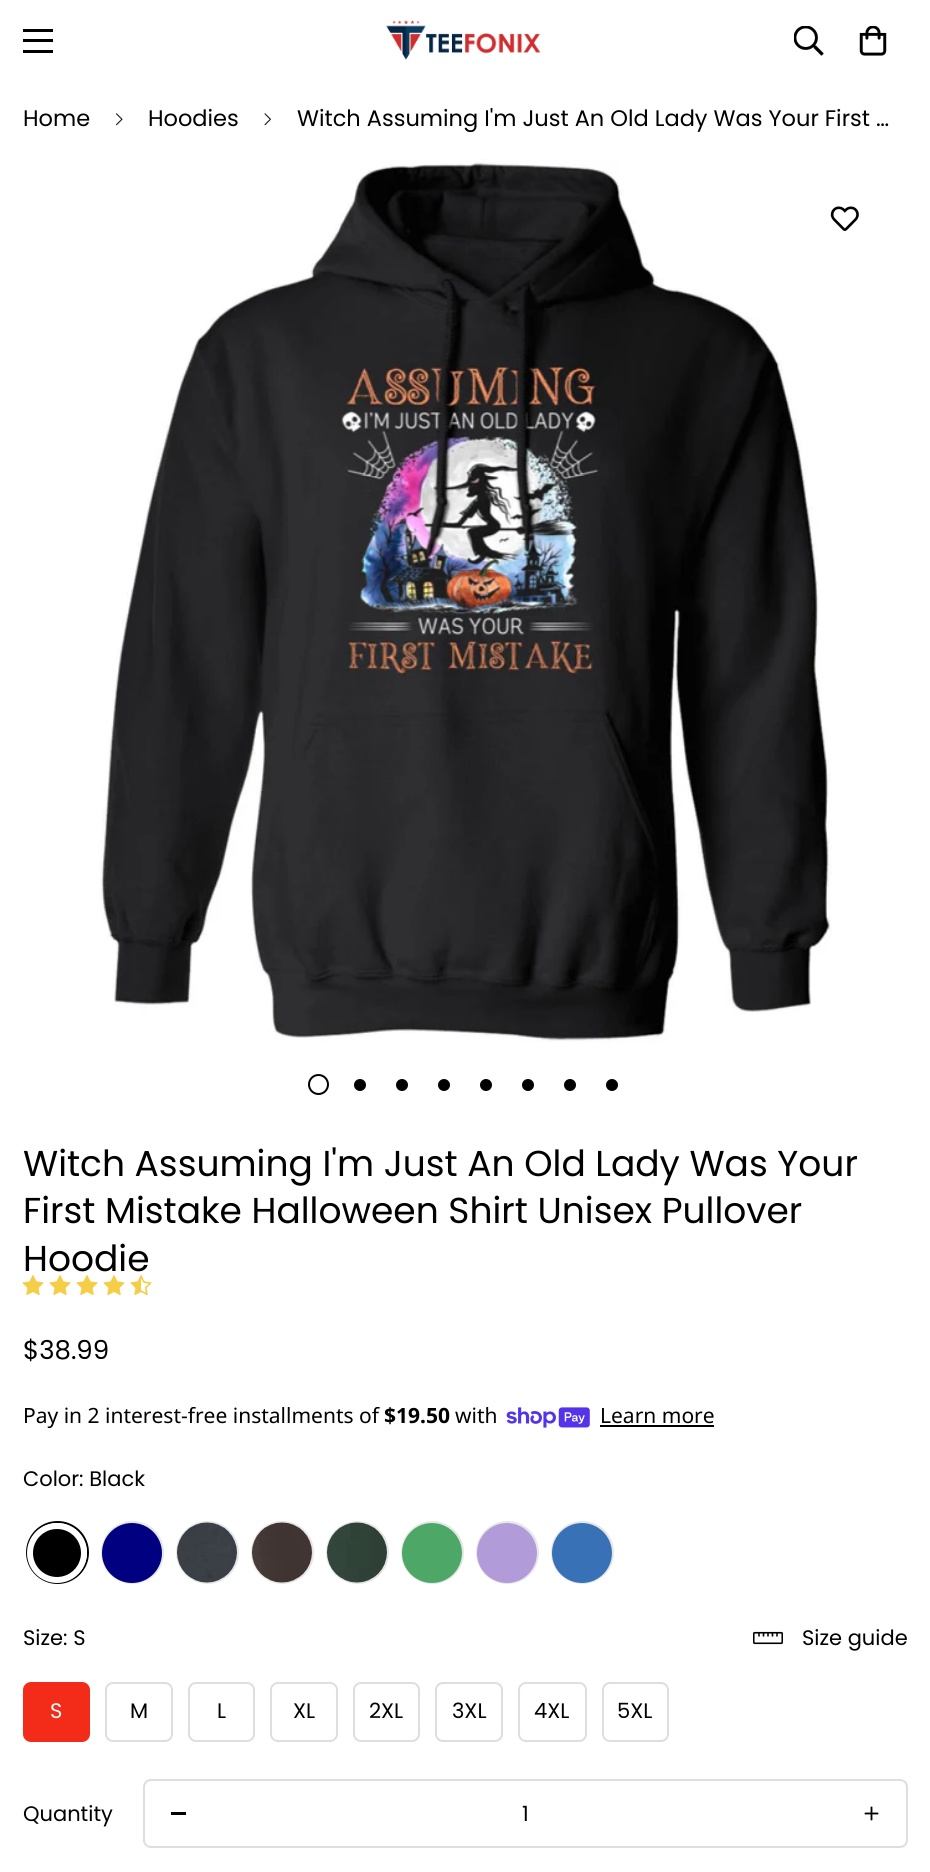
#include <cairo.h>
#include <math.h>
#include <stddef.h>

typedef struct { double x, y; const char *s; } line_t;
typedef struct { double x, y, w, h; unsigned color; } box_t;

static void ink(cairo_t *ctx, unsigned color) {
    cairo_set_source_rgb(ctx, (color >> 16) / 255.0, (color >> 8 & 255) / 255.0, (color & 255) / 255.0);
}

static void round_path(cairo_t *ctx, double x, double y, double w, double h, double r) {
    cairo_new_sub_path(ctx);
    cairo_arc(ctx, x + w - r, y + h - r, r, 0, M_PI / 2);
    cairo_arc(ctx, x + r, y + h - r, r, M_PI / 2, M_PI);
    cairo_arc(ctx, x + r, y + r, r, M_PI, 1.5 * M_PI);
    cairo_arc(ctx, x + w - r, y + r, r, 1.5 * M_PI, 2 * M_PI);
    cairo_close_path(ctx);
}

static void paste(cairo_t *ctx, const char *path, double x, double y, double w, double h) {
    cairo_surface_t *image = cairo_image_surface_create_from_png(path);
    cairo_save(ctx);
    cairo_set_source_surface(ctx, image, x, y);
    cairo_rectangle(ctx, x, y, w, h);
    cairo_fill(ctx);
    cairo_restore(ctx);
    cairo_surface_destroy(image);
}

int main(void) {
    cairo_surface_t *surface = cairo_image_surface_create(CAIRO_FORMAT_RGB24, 930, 1872);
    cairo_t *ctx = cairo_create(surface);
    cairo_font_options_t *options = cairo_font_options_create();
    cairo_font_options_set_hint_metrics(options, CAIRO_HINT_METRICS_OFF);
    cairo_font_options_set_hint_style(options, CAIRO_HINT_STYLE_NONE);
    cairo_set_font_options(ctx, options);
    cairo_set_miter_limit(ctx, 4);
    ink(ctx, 0xFFFFFF);
    cairo_paint(ctx);
    {
        static const box_t items[] = {
            {23, 39, 30, 3, 0x000000},
            {23, 29, 30, 3, 0x000000},
            {23, 50, 30, 3, 0x000000},
        };
        for (size_t i = 0; i < sizeof items / sizeof *items; i++) {
            ink(ctx, items[i].color);
            cairo_rectangle(ctx, items[i].x, items[i].y, items[i].w, items[i].h);
            cairo_fill(ctx);
        }
    }
    paste(ctx, "media/1.png", 386, 20, 155, 40);
    paste(ctx, "media/2.png", 794, 26, 30, 30);
    paste(ctx, "media/3.png", 859, 26, 28, 30);
    cairo_select_font_face(ctx, "Poppins", CAIRO_FONT_SLANT_NORMAL, CAIRO_FONT_WEIGHT_NORMAL);
    cairo_set_font_size(ctx, 22.5);
    cairo_move_to(ctx, 23, 126);
    cairo_show_text(ctx, "Home");
    paste(ctx, "media/4.png", 116, 113, 7, 13);
    cairo_move_to(ctx, 148, 126);
    cairo_show_text(ctx, "Hoodies");
    paste(ctx, "media/5.png", 264, 113, 7, 13);
    cairo_move_to(ctx, 297, 126);
    cairo_show_text(ctx, "Witch Assuming I'm Just An Old Lady Was Your First …");
    paste(ctx, "media/6.png", 101, 159, 731, 884);
    cairo_arc(ctx, 318.5, 1084.5, 9.5, 0, 2 * M_PI);
    cairo_stroke(ctx);
    cairo_arc(ctx, 360, 1085, 6, 0, 2 * M_PI);
    cairo_fill(ctx);
    cairo_arc(ctx, 402, 1085, 6, 0, 2 * M_PI);
    cairo_fill(ctx);
    cairo_arc(ctx, 444, 1085, 6, 0, 2 * M_PI);
    cairo_fill(ctx);
    cairo_arc(ctx, 486, 1085, 6, 0, 2 * M_PI);
    cairo_fill(ctx);
    cairo_arc(ctx, 528, 1085, 6, 0, 2 * M_PI);
    cairo_fill(ctx);
    cairo_arc(ctx, 570, 1085, 6, 0, 2 * M_PI);
    cairo_fill(ctx);
    cairo_arc(ctx, 612, 1085, 6, 0, 2 * M_PI);
    cairo_fill(ctx);
    paste(ctx, "media/7.png", 830, 206, 29, 25);
    cairo_set_font_size(ctx, 36);
    {
        static const line_t items[] = {
            {23, 1176, "Witch Assuming I'm Just An Old Lady Was Your"},
            {23, 1223, "First Mistake Halloween Shirt Unisex Pullover"},
            {23, 1271, "Hoodie"},
        };
        for (size_t i = 0; i < sizeof items / sizeof *items; i++) {
            cairo_move_to(ctx, items[i].x, items[i].y);
            cairo_show_text(ctx, items[i].s);
        }
    }
    paste(ctx, "media/8.png", 22, 1275, 22, 21);
    paste(ctx, "media/8.png", 49, 1275, 22, 21);
    paste(ctx, "media/8.png", 76, 1275, 22, 21);
    paste(ctx, "media/8.png", 103, 1275, 22, 21);
    paste(ctx, "media/9.png", 130, 1275, 22, 21);
    cairo_set_font_size(ctx, 26);
    cairo_move_to(ctx, 23, 1359);
    cairo_show_text(ctx, "$38.99");
    cairo_select_font_face(ctx, "Noto Sans", CAIRO_FONT_SLANT_NORMAL, CAIRO_FONT_WEIGHT_NORMAL);
    cairo_set_font_size(ctx, 21);
    cairo_move_to(ctx, 23, 1423);
    cairo_show_text(ctx, "Pay in 2 interest-free installments of");
    cairo_select_font_face(ctx, "Noto Sans", CAIRO_FONT_SLANT_NORMAL, CAIRO_FONT_WEIGHT_BOLD);
    cairo_move_to(ctx, 384, 1423);
    cairo_show_text(ctx, "$19.50");
    cairo_select_font_face(ctx, "Noto Sans", CAIRO_FONT_SLANT_NORMAL, CAIRO_FONT_WEIGHT_NORMAL);
    cairo_move_to(ctx, 455, 1423);
    cairo_show_text(ctx, "with");
    paste(ctx, "media/10.png", 506, 1407, 84, 21);
    cairo_move_to(ctx, 600, 1423);
    cairo_show_text(ctx, "Learn more");
    cairo_rectangle(ctx, 600, 1425, 114, 2);
    cairo_fill(ctx);
    cairo_select_font_face(ctx, "Poppins", CAIRO_FONT_SLANT_NORMAL, CAIRO_FONT_WEIGHT_NORMAL);
    cairo_move_to(ctx, 23, 1486);
    cairo_show_text(ctx, "Color: Black");
    cairo_new_path(ctx);
    cairo_arc(ctx, 57.5, 1552.5, 30.5, 0, 2 * M_PI);
    cairo_stroke(ctx);
    cairo_arc(ctx, 57, 1553, 27, 0, 2 * M_PI);
    cairo_fill_preserve(ctx);
    ink(ctx, 0xFFFFFF);
    cairo_set_line_width(ctx, 6);
    cairo_stroke(ctx);
    cairo_arc(ctx, 132.5, 1552.5, 30.5, 0, 2 * M_PI);
    ink(ctx, 0xE6E6E6);
    cairo_set_line_width(ctx, 2);
    cairo_stroke(ctx);
    ink(ctx, 0x000080);
    cairo_arc(ctx, 132, 1553, 30, 0, 2 * M_PI);
    cairo_fill(ctx);
    cairo_arc(ctx, 207.5, 1552.5, 30.5, 0, 2 * M_PI);
    ink(ctx, 0xE6E6E6);
    cairo_stroke(ctx);
    paste(ctx, "media/11.png", 177, 1522, 61, 61);
    cairo_arc(ctx, 282.5, 1552.5, 30.5, 0, 2 * M_PI);
    cairo_stroke(ctx);
    paste(ctx, "media/12.png", 251, 1522, 62, 61);
    cairo_arc(ctx, 357.5, 1552.5, 30.5, 0, 2 * M_PI);
    cairo_stroke(ctx);
    paste(ctx, "media/13.png", 326, 1522, 61, 61);
    cairo_arc(ctx, 432.5, 1552.5, 30.5, 0, 2 * M_PI);
    cairo_stroke(ctx);
    ink(ctx, 0x4DA766);
    cairo_arc(ctx, 432, 1553, 30, 0, 2 * M_PI);
    cairo_fill(ctx);
    cairo_arc(ctx, 507.5, 1552.5, 30.5, 0, 2 * M_PI);
    ink(ctx, 0xE6E6E6);
    cairo_stroke(ctx);
    ink(ctx, 0xB19CD9);
    cairo_arc(ctx, 507, 1553, 30, 0, 2 * M_PI);
    cairo_fill(ctx);
    cairo_arc(ctx, 582.5, 1552.5, 30.5, 0, 2 * M_PI);
    ink(ctx, 0xE6E6E6);
    cairo_stroke(ctx);
    ink(ctx, 0x3971B6);
    cairo_arc(ctx, 582, 1553, 30, 0, 2 * M_PI);
    cairo_fill(ctx);
    ink(ctx, 0x000000);
    cairo_move_to(ctx, 23, 1645);
    cairo_show_text(ctx, "Size: S");
    paste(ctx, "media/14.png", 753, 1631, 30, 14);
    cairo_move_to(ctx, 802, 1645);
    cairo_show_text(ctx, "Size guide");
    ink(ctx, 0xF32B19);
    round_path(ctx, 24, 1683, 65, 58, 7);
    cairo_fill_preserve(ctx);
    cairo_stroke(ctx);
    ink(ctx, 0xFFFFFF);
    cairo_move_to(ctx, 50, 1718);
    cairo_show_text(ctx, "S");
    round_path(ctx, 106, 1683, 66, 58, 7);
    ink(ctx, 0xDEDEDE);
    cairo_stroke(ctx);
    ink(ctx, 0x000000);
    cairo_move_to(ctx, 130, 1718);
    cairo_show_text(ctx, "M");
    round_path(ctx, 189, 1683, 65, 58, 7);
    ink(ctx, 0xDEDEDE);
    cairo_stroke(ctx);
    ink(ctx, 0x000000);
    cairo_move_to(ctx, 217, 1718);
    cairo_show_text(ctx, "L");
    round_path(ctx, 271, 1683, 66, 58, 7);
    ink(ctx, 0xDEDEDE);
    cairo_stroke(ctx);
    ink(ctx, 0x000000);
    cairo_move_to(ctx, 293, 1718);
    cairo_show_text(ctx, "XL");
    round_path(ctx, 354, 1683, 65, 58, 7);
    ink(ctx, 0xDEDEDE);
    cairo_stroke(ctx);
    ink(ctx, 0x000000);
    cairo_move_to(ctx, 369, 1718);
    cairo_show_text(ctx, "2XL");
    round_path(ctx, 436, 1683, 66, 58, 7);
    ink(ctx, 0xDEDEDE);
    cairo_stroke(ctx);
    ink(ctx, 0x000000);
    cairo_move_to(ctx, 452, 1718);
    cairo_show_text(ctx, "3XL");
    round_path(ctx, 519, 1683, 67, 58, 7);
    ink(ctx, 0xDEDEDE);
    cairo_stroke(ctx);
    ink(ctx, 0x000000);
    cairo_move_to(ctx, 534, 1718);
    cairo_show_text(ctx, "4XL");
    round_path(ctx, 603, 1683, 65, 58, 7);
    ink(ctx, 0xDEDEDE);
    cairo_stroke(ctx);
    ink(ctx, 0x000000);
    cairo_move_to(ctx, 617, 1718);
    cairo_show_text(ctx, "5XL");
    cairo_move_to(ctx, 23, 1821);
    cairo_show_text(ctx, "Quantity");
    round_path(ctx, 144, 1780, 763, 67, 7);
    ink(ctx, 0xDEDEDE);
    cairo_stroke(ctx);
    ink(ctx, 0x000000);
    cairo_rectangle(ctx, 171, 1812, 15, 3);
    cairo_fill(ctx);
    cairo_move_to(ctx, 522, 1821);
    cairo_show_text(ctx, "1");
    paste(ctx, "media/15.png", 864, 1806, 15, 15);
    cairo_surface_write_to_png(surface, "image.png");
    cairo_font_options_destroy(options);
    cairo_destroy(ctx);
    cairo_surface_destroy(surface);
    return 0;
}
